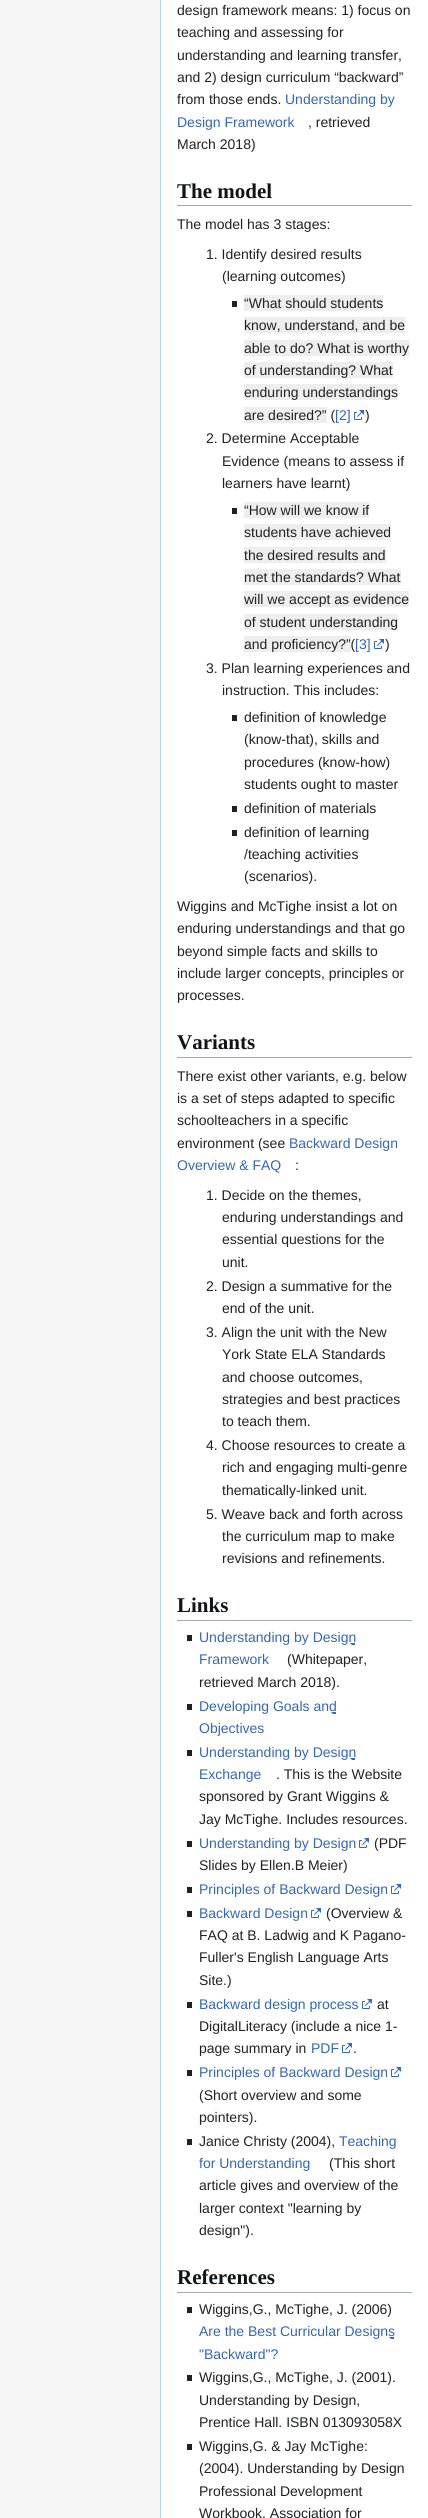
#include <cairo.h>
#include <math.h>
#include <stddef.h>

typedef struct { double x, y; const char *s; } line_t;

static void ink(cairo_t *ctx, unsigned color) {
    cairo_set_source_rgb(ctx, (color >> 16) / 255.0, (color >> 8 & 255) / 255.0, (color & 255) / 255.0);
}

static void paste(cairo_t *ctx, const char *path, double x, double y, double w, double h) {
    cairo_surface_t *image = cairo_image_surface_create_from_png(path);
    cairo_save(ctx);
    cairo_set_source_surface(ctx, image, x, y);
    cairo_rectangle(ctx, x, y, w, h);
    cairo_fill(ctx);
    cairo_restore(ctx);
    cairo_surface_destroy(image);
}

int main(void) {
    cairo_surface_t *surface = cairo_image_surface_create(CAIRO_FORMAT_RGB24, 428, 2518);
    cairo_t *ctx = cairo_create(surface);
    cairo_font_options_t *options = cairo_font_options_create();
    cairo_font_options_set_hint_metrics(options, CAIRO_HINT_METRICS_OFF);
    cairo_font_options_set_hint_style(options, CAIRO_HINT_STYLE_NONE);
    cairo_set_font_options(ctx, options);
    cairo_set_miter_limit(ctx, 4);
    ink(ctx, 0xF6F6F6);
    cairo_paint(ctx);
    ink(ctx, 0xFFFFFF);
    cairo_rectangle(ctx, 161, 0, 267, 2518);
    cairo_fill(ctx);
    ink(ctx, 0xA7D7F9);
    cairo_rectangle(ctx, 160, 0, 1, 2518);
    cairo_fill(ctx);
    cairo_select_font_face(ctx, "Liberation Sans", CAIRO_FONT_SLANT_NORMAL, CAIRO_FONT_WEIGHT_NORMAL);
    cairo_set_font_size(ctx, 14);
    ink(ctx, 0x202122);
    {
        static const line_t items[] = {
            {177, 15, "design framework means: 1) focus on"},
            {177, 37, "teaching and assessing for"},
            {177, 60, "understanding and learning transfer,"},
            {177, 82, "and 2) design curriculum “backward”"},
            {177, 104, "from those ends."},
        };
        for (size_t i = 0; i < sizeof items / sizeof *items; i++) {
            cairo_move_to(ctx, items[i].x, items[i].y);
            cairo_show_text(ctx, items[i].s);
        }
    }
    ink(ctx, 0x3366BB);
    cairo_move_to(ctx, 285, 104);
    cairo_show_text(ctx, "Understanding by");
    cairo_move_to(ctx, 177, 127);
    cairo_show_text(ctx, "Design Framework");
    ink(ctx, 0x202122);
    cairo_move_to(ctx, 308, 127);
    cairo_show_text(ctx, ", retrieved");
    cairo_move_to(ctx, 177, 149);
    cairo_show_text(ctx, "March 2018)");
    ink(ctx, 0xA2A9B1);
    cairo_rectangle(ctx, 177, 205, 235, 1);
    cairo_fill(ctx);
    cairo_select_font_face(ctx, "Liberation Serif", CAIRO_FONT_SLANT_NORMAL, CAIRO_FONT_WEIGHT_BOLD);
    cairo_set_font_size(ctx, 21);
    ink(ctx, 0x101418);
    cairo_move_to(ctx, 177, 198);
    cairo_show_text(ctx, "The model");
    cairo_select_font_face(ctx, "Liberation Sans", CAIRO_FONT_SLANT_NORMAL, CAIRO_FONT_WEIGHT_NORMAL);
    cairo_set_font_size(ctx, 14);
    ink(ctx, 0x202122);
    {
        static const line_t items[] = {
            {177, 229, "The model has 3 stages:"},
            {206, 259, "1. Identify desired results"},
            {222, 281, "(learning outcomes)"},
        };
        for (size_t i = 0; i < sizeof items / sizeof *items; i++) {
            cairo_move_to(ctx, items[i].x, items[i].y);
            cairo_show_text(ctx, items[i].s);
        }
    }
    cairo_rectangle(ctx, 232, 301, 5, 6);
    cairo_fill(ctx);
    ink(ctx, 0xEEEEEE);
    cairo_rectangle(ctx, 244, 295, 139, 16);
    cairo_fill(ctx);
    ink(ctx, 0x202122);
    cairo_move_to(ctx, 244, 308);
    cairo_show_text(ctx, "“What should students");
    ink(ctx, 0xEEEEEE);
    cairo_rectangle(ctx, 244, 317, 161, 16);
    cairo_fill(ctx);
    ink(ctx, 0x202122);
    cairo_move_to(ctx, 244, 330);
    cairo_show_text(ctx, "know, understand, and be");
    ink(ctx, 0xEEEEEE);
    cairo_rectangle(ctx, 244, 340, 165, 16);
    cairo_fill(ctx);
    ink(ctx, 0x202122);
    cairo_move_to(ctx, 244, 353);
    cairo_show_text(ctx, "able to do? What is worthy");
    ink(ctx, 0xEEEEEE);
    cairo_rectangle(ctx, 244, 362, 149, 16);
    cairo_fill(ctx);
    ink(ctx, 0x202122);
    cairo_move_to(ctx, 244, 375);
    cairo_show_text(ctx, "of understanding? What");
    ink(ctx, 0xEEEEEE);
    cairo_rectangle(ctx, 244, 384, 154, 16);
    cairo_fill(ctx);
    ink(ctx, 0x202122);
    cairo_move_to(ctx, 244, 397);
    cairo_show_text(ctx, "enduring understandings");
    ink(ctx, 0xEEEEEE);
    cairo_rectangle(ctx, 244, 407, 83, 16);
    cairo_fill(ctx);
    ink(ctx, 0x202122);
    cairo_move_to(ctx, 244, 420);
    cairo_show_text(ctx, "are desired?” (");
    ink(ctx, 0x3366BB);
    cairo_move_to(ctx, 335, 420);
    cairo_show_text(ctx, "[2]");
    paste(ctx, "media/1.png", 354, 410, 10, 10);
    ink(ctx, 0x202122);
    {
        static const line_t items[] = {
            {365, 420, ")"},
            {206, 443, "2. Determine Acceptable"},
            {222, 466, "Evidence (means to assess if"},
            {222, 488, "learners have learnt)"},
        };
        for (size_t i = 0; i < sizeof items / sizeof *items; i++) {
            cairo_move_to(ctx, items[i].x, items[i].y);
            cairo_show_text(ctx, items[i].s);
        }
    }
    cairo_rectangle(ctx, 232, 508, 5, 6);
    cairo_fill(ctx);
    ink(ctx, 0xEEEEEE);
    cairo_rectangle(ctx, 244, 502, 125, 16);
    cairo_fill(ctx);
    ink(ctx, 0x202122);
    cairo_move_to(ctx, 244, 515);
    cairo_show_text(ctx, "“How will we know if");
    ink(ctx, 0xEEEEEE);
    cairo_rectangle(ctx, 244, 524, 147, 16);
    cairo_fill(ctx);
    ink(ctx, 0x202122);
    cairo_move_to(ctx, 244, 537);
    cairo_show_text(ctx, "students have achieved");
    ink(ctx, 0xEEEEEE);
    cairo_rectangle(ctx, 244, 547, 142, 16);
    cairo_fill(ctx);
    ink(ctx, 0x202122);
    cairo_move_to(ctx, 244, 560);
    cairo_show_text(ctx, "the desired results and");
    ink(ctx, 0xEEEEEE);
    cairo_rectangle(ctx, 244, 569, 157, 16);
    cairo_fill(ctx);
    ink(ctx, 0x202122);
    cairo_move_to(ctx, 244, 582);
    cairo_show_text(ctx, "met the standards? What");
    ink(ctx, 0xEEEEEE);
    cairo_rectangle(ctx, 244, 591, 165, 16);
    cairo_fill(ctx);
    ink(ctx, 0x202122);
    cairo_move_to(ctx, 244, 604);
    cairo_show_text(ctx, "will we accept as evidence");
    ink(ctx, 0xEEEEEE);
    cairo_rectangle(ctx, 244, 614, 154, 16);
    cairo_fill(ctx);
    ink(ctx, 0x202122);
    cairo_move_to(ctx, 244, 627);
    cairo_show_text(ctx, "of student understanding");
    ink(ctx, 0xEEEEEE);
    cairo_rectangle(ctx, 244, 636, 107, 16);
    cairo_fill(ctx);
    ink(ctx, 0x202122);
    cairo_move_to(ctx, 244, 649);
    cairo_show_text(ctx, "and proficiency?”(");
    ink(ctx, 0x3366BB);
    cairo_move_to(ctx, 355, 649);
    cairo_show_text(ctx, "[3]");
    paste(ctx, "media/1.png", 374, 639, 10, 10);
    ink(ctx, 0x202122);
    {
        static const line_t items[] = {
            {385, 649, ")"},
            {206, 673, "3. Plan learning experiences and"},
            {222, 695, "instruction. This includes:"},
        };
        for (size_t i = 0; i < sizeof items / sizeof *items; i++) {
            cairo_move_to(ctx, items[i].x, items[i].y);
            cairo_show_text(ctx, items[i].s);
        }
    }
    cairo_rectangle(ctx, 232, 715, 5, 6);
    cairo_fill(ctx);
    {
        static const line_t items[] = {
            {244, 722, "definition of knowledge"},
            {244, 744, "(know-that), skills and"},
            {244, 767, "procedures (know-how)"},
            {244, 789, "students ought to master"},
        };
        for (size_t i = 0; i < sizeof items / sizeof *items; i++) {
            cairo_move_to(ctx, items[i].x, items[i].y);
            cairo_show_text(ctx, items[i].s);
        }
    }
    cairo_rectangle(ctx, 232, 806, 5, 6);
    cairo_fill(ctx);
    cairo_move_to(ctx, 244, 813);
    cairo_show_text(ctx, "definition of materials");
    cairo_rectangle(ctx, 232, 830, 5, 6);
    cairo_fill(ctx);
    {
        static const line_t items[] = {
            {244, 837, "definition of learning"},
            {244, 859, "/teaching activities"},
            {244, 881, "(scenarios)."},
            {177, 911, "Wiggins and McTighe insist a lot on"},
            {177, 933, "enduring understandings and that go"},
            {177, 956, "beyond simple facts and skills to"},
            {177, 978, "include larger concepts, principles or"},
            {177, 1000, "processes."},
        };
        for (size_t i = 0; i < sizeof items / sizeof *items; i++) {
            cairo_move_to(ctx, items[i].x, items[i].y);
            cairo_show_text(ctx, items[i].s);
        }
    }
    ink(ctx, 0xA2A9B1);
    cairo_rectangle(ctx, 177, 1057, 235, 1);
    cairo_fill(ctx);
    cairo_select_font_face(ctx, "Liberation Serif", CAIRO_FONT_SLANT_NORMAL, CAIRO_FONT_WEIGHT_BOLD);
    cairo_set_font_size(ctx, 21);
    ink(ctx, 0x101418);
    cairo_move_to(ctx, 177, 1049);
    cairo_show_text(ctx, "Variants");
    cairo_select_font_face(ctx, "Liberation Sans", CAIRO_FONT_SLANT_NORMAL, CAIRO_FONT_WEIGHT_NORMAL);
    cairo_set_font_size(ctx, 14);
    ink(ctx, 0x202122);
    {
        static const line_t items[] = {
            {177, 1081, "There exist other variants, e.g. below"},
            {177, 1103, "is a set of steps adapted to specific"},
            {177, 1125, "schoolteachers in a specific"},
            {177, 1148, "environment (see"},
        };
        for (size_t i = 0; i < sizeof items / sizeof *items; i++) {
            cairo_move_to(ctx, items[i].x, items[i].y);
            cairo_show_text(ctx, items[i].s);
        }
    }
    ink(ctx, 0x3366BB);
    cairo_move_to(ctx, 289, 1148);
    cairo_show_text(ctx, "Backward Design");
    cairo_move_to(ctx, 177, 1170);
    cairo_show_text(ctx, "Overview & FAQ");
    ink(ctx, 0x202122);
    {
        static const line_t items[] = {
            {295, 1170, ":"},
            {206, 1200, "1. Decide on the themes,"},
            {222, 1222, "enduring understandings and"},
            {222, 1244, "essential questions for the"},
            {222, 1267, "unit."},
            {206, 1291, "2. Design a summative for the"},
            {222, 1313, "end of the unit."},
            {206, 1337, "3. Align the unit with the New"},
            {222, 1359, "York State ELA Standards"},
            {222, 1382, "and choose outcomes,"},
            {222, 1404, "strategies and best practices"},
            {222, 1426, "to teach them."},
            {206, 1450, "4. Choose resources to create a"},
            {222, 1472, "rich and engaging multi-genre"},
            {222, 1495, "thematically-linked unit."},
            {206, 1519, "5. Weave back and forth across"},
            {222, 1541, "the curriculum map to make"},
            {222, 1563, "revisions and refinements."},
        };
        for (size_t i = 0; i < sizeof items / sizeof *items; i++) {
            cairo_move_to(ctx, items[i].x, items[i].y);
            cairo_show_text(ctx, items[i].s);
        }
    }
    ink(ctx, 0xA2A9B1);
    cairo_rectangle(ctx, 177, 1620, 235, 1);
    cairo_fill(ctx);
    cairo_select_font_face(ctx, "Liberation Serif", CAIRO_FONT_SLANT_NORMAL, CAIRO_FONT_WEIGHT_BOLD);
    cairo_set_font_size(ctx, 21);
    ink(ctx, 0x101418);
    cairo_move_to(ctx, 177, 1612);
    cairo_show_text(ctx, "Links");
    ink(ctx, 0x202122);
    cairo_rectangle(ctx, 187, 1635, 5, 6);
    cairo_fill(ctx);
    paste(ctx, "media/2.png", 350, 1643, 5, 2);
    cairo_select_font_face(ctx, "Liberation Sans", CAIRO_FONT_SLANT_NORMAL, CAIRO_FONT_WEIGHT_NORMAL);
    cairo_set_font_size(ctx, 14);
    ink(ctx, 0x3366BB);
    cairo_move_to(ctx, 199, 1642);
    cairo_show_text(ctx, "Understanding by Design");
    cairo_move_to(ctx, 199, 1664);
    cairo_show_text(ctx, "Framework");
    ink(ctx, 0x202122);
    cairo_move_to(ctx, 287, 1664);
    cairo_show_text(ctx, "(Whitepaper,");
    cairo_move_to(ctx, 199, 1687);
    cairo_show_text(ctx, "retrieved March 2018).");
    cairo_rectangle(ctx, 187, 1704, 5, 6);
    cairo_fill(ctx);
    paste(ctx, "media/2.png", 331, 1712, 5, 2);
    ink(ctx, 0x3366BB);
    cairo_move_to(ctx, 199, 1711);
    cairo_show_text(ctx, "Developing Goals and");
    cairo_move_to(ctx, 199, 1733);
    cairo_show_text(ctx, "Objectives");
    ink(ctx, 0x202122);
    cairo_rectangle(ctx, 187, 1750, 5, 6);
    cairo_fill(ctx);
    paste(ctx, "media/2.png", 350, 1758, 5, 2);
    ink(ctx, 0x3366BB);
    cairo_move_to(ctx, 199, 1757);
    cairo_show_text(ctx, "Understanding by Design");
    cairo_move_to(ctx, 199, 1779);
    cairo_show_text(ctx, "Exchange");
    ink(ctx, 0x202122);
    {
        static const line_t items[] = {
            {276, 1779, ". This is the Website"},
            {199, 1801, "sponsored by Grant Wiggins &"},
            {199, 1824, "Jay McTighe. Includes resources."},
        };
        for (size_t i = 0; i < sizeof items / sizeof *items; i++) {
            cairo_move_to(ctx, items[i].x, items[i].y);
            cairo_show_text(ctx, items[i].s);
        }
    }
    cairo_rectangle(ctx, 187, 1841, 5, 6);
    cairo_fill(ctx);
    ink(ctx, 0x3366BB);
    cairo_move_to(ctx, 199, 1848);
    cairo_show_text(ctx, "Understanding by Design");
    paste(ctx, "media/1.png", 359, 1838, 10, 10);
    ink(ctx, 0x202122);
    cairo_move_to(ctx, 374, 1848);
    cairo_show_text(ctx, "(PDF");
    cairo_move_to(ctx, 199, 1870);
    cairo_show_text(ctx, "Slides by Ellen.B Meier)");
    cairo_rectangle(ctx, 187, 1887, 5, 6);
    cairo_fill(ctx);
    ink(ctx, 0x3366BB);
    cairo_move_to(ctx, 199, 1894);
    cairo_show_text(ctx, "Principles of Backward Design");
    paste(ctx, "media/1.png", 391, 1884, 10, 10);
    ink(ctx, 0x202122);
    cairo_rectangle(ctx, 187, 1911, 5, 6);
    cairo_fill(ctx);
    ink(ctx, 0x3366BB);
    cairo_move_to(ctx, 199, 1918);
    cairo_show_text(ctx, "Backward Design");
    paste(ctx, "media/1.png", 311, 1908, 10, 10);
    ink(ctx, 0x202122);
    {
        static const line_t items[] = {
            {326, 1918, "(Overview &"},
            {199, 1940, "FAQ at B. Ladwig and K Pagano-"},
            {199, 1962, "Fuller's English Language Arts"},
            {199, 1985, "Site.)"},
        };
        for (size_t i = 0; i < sizeof items / sizeof *items; i++) {
            cairo_move_to(ctx, items[i].x, items[i].y);
            cairo_show_text(ctx, items[i].s);
        }
    }
    cairo_rectangle(ctx, 187, 2002, 5, 6);
    cairo_fill(ctx);
    ink(ctx, 0x3366BB);
    cairo_move_to(ctx, 199, 2009);
    cairo_show_text(ctx, "Backward design process");
    paste(ctx, "media/1.png", 362, 1999, 10, 10);
    ink(ctx, 0x202122);
    {
        static const line_t items[] = {
            {377, 2009, "at"},
            {199, 2031, "DigitalLiteracy (include a nice 1-"},
            {199, 2053, "page summary in"},
        };
        for (size_t i = 0; i < sizeof items / sizeof *items; i++) {
            cairo_move_to(ctx, items[i].x, items[i].y);
            cairo_show_text(ctx, items[i].s);
        }
    }
    ink(ctx, 0x3366BB);
    cairo_move_to(ctx, 311, 2053);
    cairo_show_text(ctx, "PDF");
    paste(ctx, "media/1.png", 342, 2043, 10, 10);
    ink(ctx, 0x202122);
    cairo_move_to(ctx, 353, 2053);
    cairo_show_text(ctx, ".");
    cairo_rectangle(ctx, 187, 2070, 5, 6);
    cairo_fill(ctx);
    ink(ctx, 0x3366BB);
    cairo_move_to(ctx, 199, 2077);
    cairo_show_text(ctx, "Principles of Backward Design");
    paste(ctx, "media/1.png", 391, 2067, 10, 10);
    ink(ctx, 0x202122);
    cairo_move_to(ctx, 199, 2100);
    cairo_show_text(ctx, "(Short overview and some");
    cairo_move_to(ctx, 199, 2122);
    cairo_show_text(ctx, "pointers).");
    cairo_rectangle(ctx, 187, 2139, 5, 6);
    cairo_fill(ctx);
    cairo_move_to(ctx, 199, 2146);
    cairo_show_text(ctx, "Janice Christy (2004),");
    ink(ctx, 0x3366BB);
    cairo_move_to(ctx, 339, 2146);
    cairo_show_text(ctx, "Teaching");
    cairo_move_to(ctx, 199, 2168);
    cairo_show_text(ctx, "for Understanding");
    ink(ctx, 0x202122);
    {
        static const line_t items[] = {
            {329, 2168, "(This short"},
            {199, 2190, "article gives and overview of the"},
            {199, 2213, "larger context \"learning by"},
            {199, 2235, "design\")."},
        };
        for (size_t i = 0; i < sizeof items / sizeof *items; i++) {
            cairo_move_to(ctx, items[i].x, items[i].y);
            cairo_show_text(ctx, items[i].s);
        }
    }
    ink(ctx, 0xA2A9B1);
    cairo_rectangle(ctx, 177, 2292, 235, 1);
    cairo_fill(ctx);
    cairo_select_font_face(ctx, "Liberation Serif", CAIRO_FONT_SLANT_NORMAL, CAIRO_FONT_WEIGHT_BOLD);
    cairo_set_font_size(ctx, 21);
    ink(ctx, 0x101418);
    cairo_move_to(ctx, 177, 2284);
    cairo_show_text(ctx, "References");
    ink(ctx, 0x202122);
    cairo_rectangle(ctx, 187, 2307, 5, 6);
    cairo_fill(ctx);
    cairo_select_font_face(ctx, "Liberation Sans", CAIRO_FONT_SLANT_NORMAL, CAIRO_FONT_WEIGHT_NORMAL);
    cairo_set_font_size(ctx, 14);
    cairo_move_to(ctx, 199, 2314);
    cairo_show_text(ctx, "Wiggins,G., McTighe, J. (2006)");
    paste(ctx, "media/2.png", 389, 2337, 5, 2);
    ink(ctx, 0x3366BB);
    cairo_move_to(ctx, 199, 2336);
    cairo_show_text(ctx, "Are the Best Curricular Designs");
    cairo_move_to(ctx, 199, 2359);
    cairo_show_text(ctx, "\"Backward\"?");
    ink(ctx, 0x202122);
    cairo_rectangle(ctx, 187, 2375, 5, 6);
    cairo_fill(ctx);
    {
        static const line_t items[] = {
            {199, 2382, "Wiggins,G., McTighe, J. (2001)."},
            {199, 2405, "Understanding by Design,"},
            {199, 2427, "Prentice Hall. ISBN 013093058X"},
        };
        for (size_t i = 0; i < sizeof items / sizeof *items; i++) {
            cairo_move_to(ctx, items[i].x, items[i].y);
            cairo_show_text(ctx, items[i].s);
        }
    }
    cairo_rectangle(ctx, 187, 2444, 5, 6);
    cairo_fill(ctx);
    {
        static const line_t items[] = {
            {199, 2451, "Wiggins,G. & Jay McTighe:"},
            {199, 2473, "(2004). Understanding by Design"},
            {199, 2496, "Professional Development"},
            {199, 2518, "Workbook, Association for"},
        };
        for (size_t i = 0; i < sizeof items / sizeof *items; i++) {
            cairo_move_to(ctx, items[i].x, items[i].y);
            cairo_show_text(ctx, items[i].s);
        }
    }
    cairo_surface_write_to_png(surface, "image.png");
    cairo_font_options_destroy(options);
    cairo_destroy(ctx);
    cairo_surface_destroy(surface);
    return 0;
}
